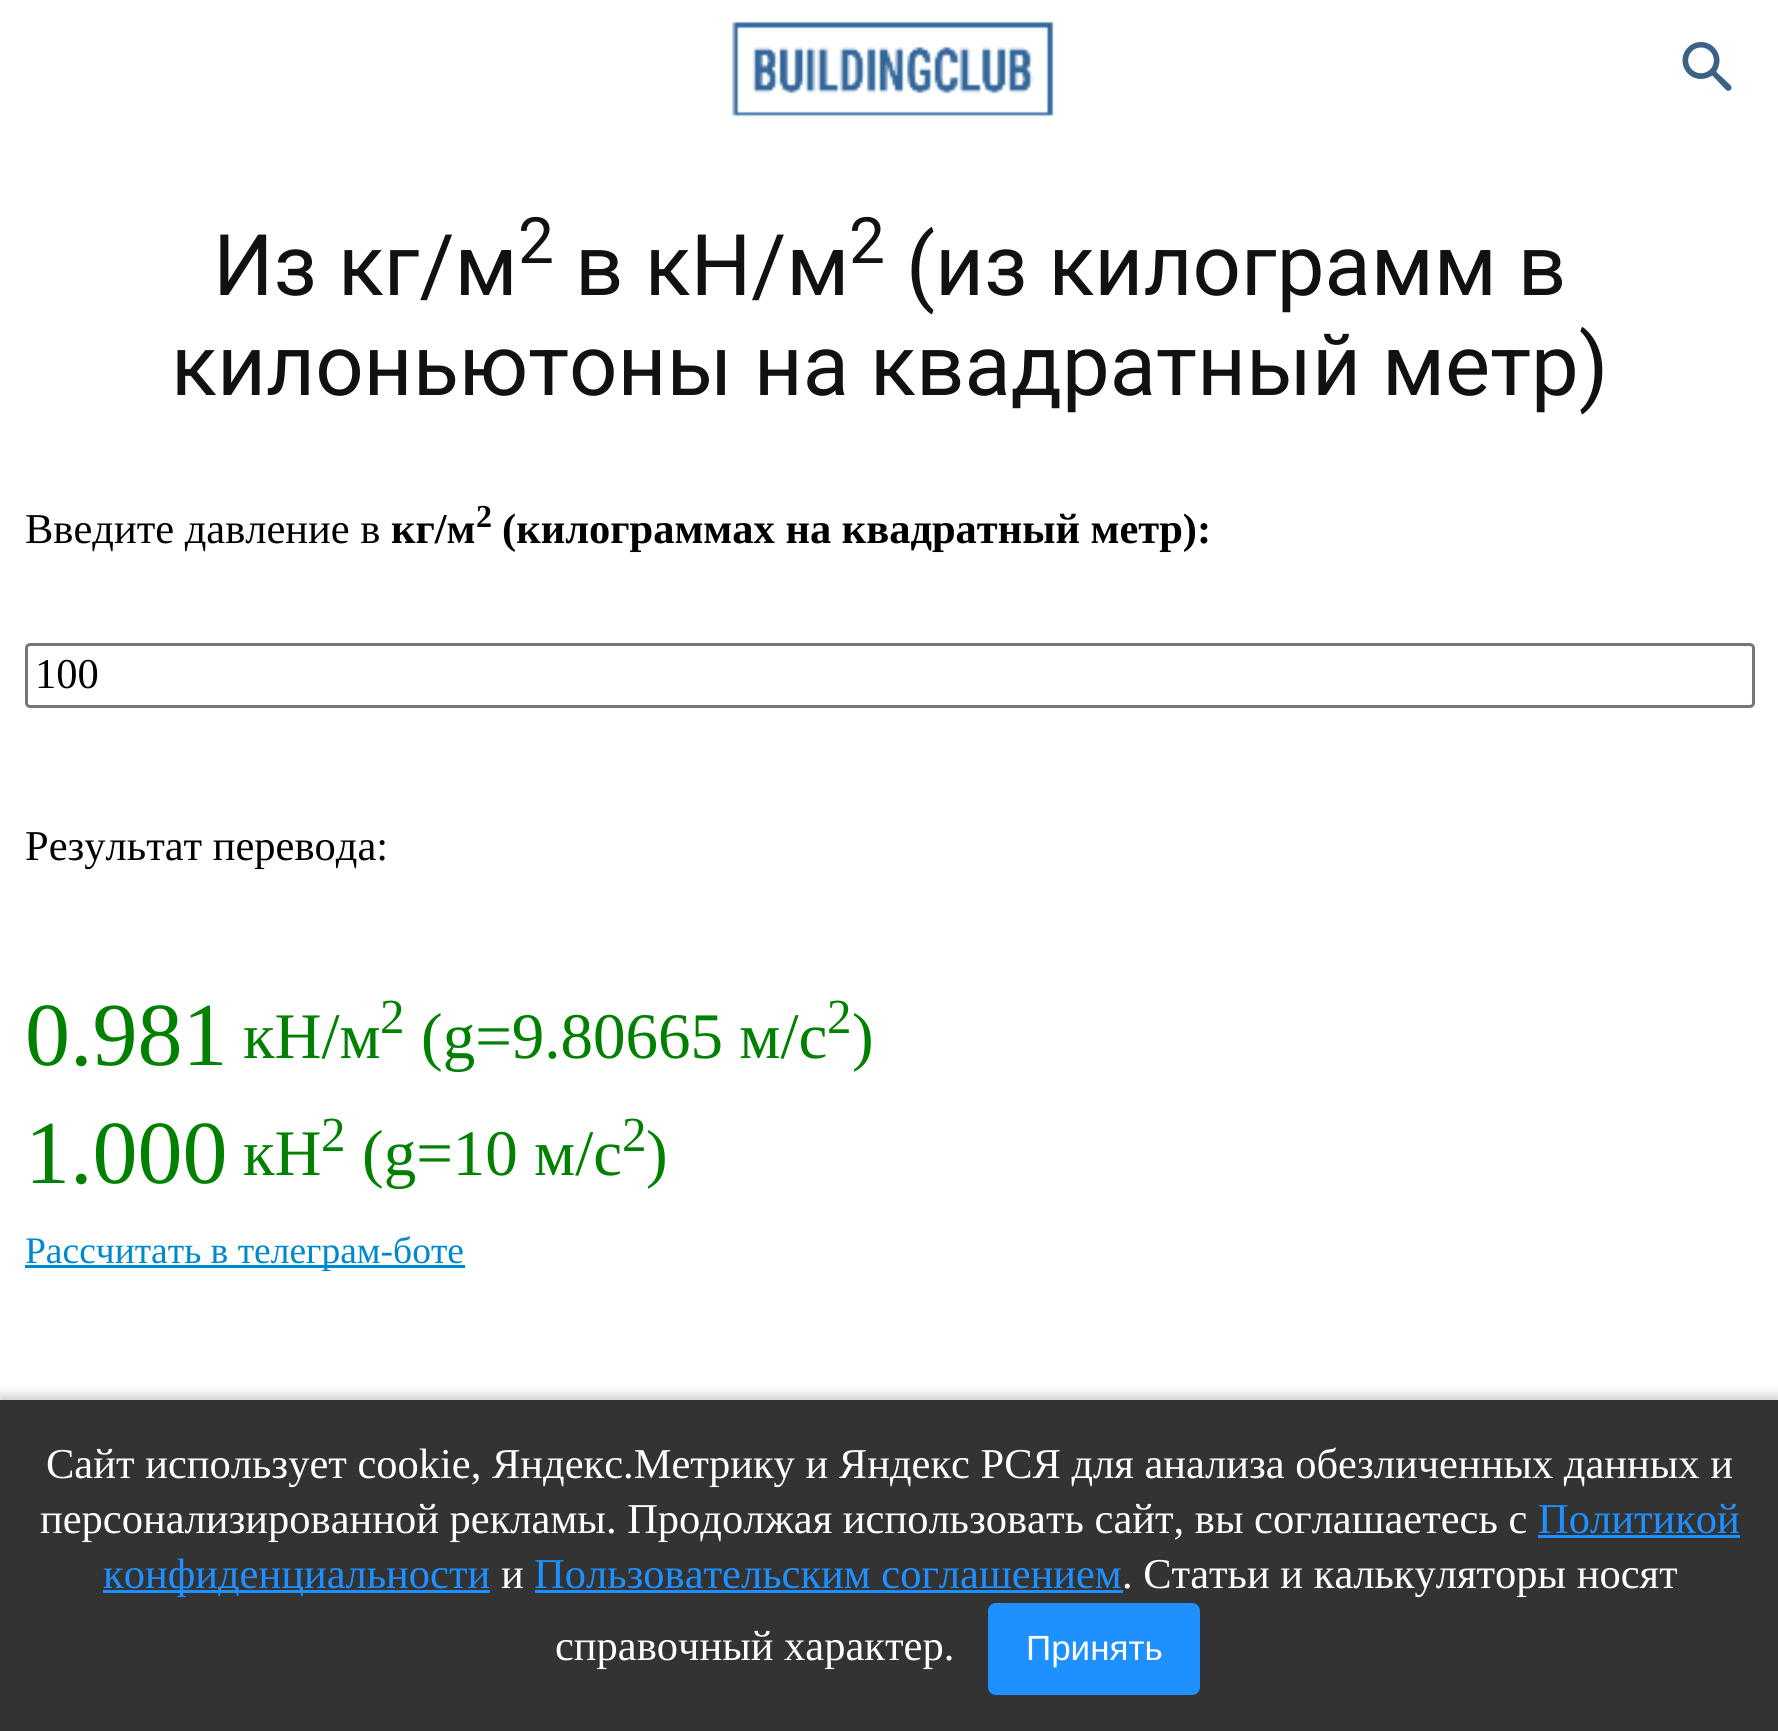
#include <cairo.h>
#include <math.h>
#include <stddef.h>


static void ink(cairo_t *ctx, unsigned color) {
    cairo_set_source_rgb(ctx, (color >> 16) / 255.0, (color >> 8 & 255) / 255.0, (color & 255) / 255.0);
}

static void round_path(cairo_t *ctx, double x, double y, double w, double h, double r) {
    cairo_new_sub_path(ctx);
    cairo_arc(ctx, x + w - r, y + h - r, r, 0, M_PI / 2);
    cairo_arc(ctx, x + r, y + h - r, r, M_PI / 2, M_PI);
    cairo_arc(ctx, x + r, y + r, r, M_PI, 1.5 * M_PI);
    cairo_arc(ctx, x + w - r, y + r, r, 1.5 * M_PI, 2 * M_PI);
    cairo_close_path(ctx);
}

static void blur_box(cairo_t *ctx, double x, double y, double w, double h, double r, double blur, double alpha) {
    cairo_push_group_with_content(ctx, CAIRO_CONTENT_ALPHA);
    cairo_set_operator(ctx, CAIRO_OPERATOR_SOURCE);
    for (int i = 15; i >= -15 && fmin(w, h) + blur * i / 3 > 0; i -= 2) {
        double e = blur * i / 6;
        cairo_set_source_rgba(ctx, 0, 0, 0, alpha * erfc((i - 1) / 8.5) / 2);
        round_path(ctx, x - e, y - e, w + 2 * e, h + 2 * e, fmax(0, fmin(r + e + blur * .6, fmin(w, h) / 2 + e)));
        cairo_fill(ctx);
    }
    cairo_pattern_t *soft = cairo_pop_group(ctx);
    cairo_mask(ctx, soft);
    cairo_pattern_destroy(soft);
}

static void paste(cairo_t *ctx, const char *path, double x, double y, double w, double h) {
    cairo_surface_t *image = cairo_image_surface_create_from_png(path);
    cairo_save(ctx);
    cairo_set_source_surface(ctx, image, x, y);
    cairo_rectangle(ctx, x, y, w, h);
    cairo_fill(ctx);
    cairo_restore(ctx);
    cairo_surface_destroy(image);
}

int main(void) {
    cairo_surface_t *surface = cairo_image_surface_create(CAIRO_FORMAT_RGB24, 1778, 1731);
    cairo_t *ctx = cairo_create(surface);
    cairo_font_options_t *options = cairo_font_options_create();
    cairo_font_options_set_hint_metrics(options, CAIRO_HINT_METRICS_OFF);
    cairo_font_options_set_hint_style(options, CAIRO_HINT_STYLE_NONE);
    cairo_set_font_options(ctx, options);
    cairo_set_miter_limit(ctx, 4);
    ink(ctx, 0xFFFFFF);
    cairo_paint(ctx);
    paste(ctx, "media/1.png", 731, 21, 323, 97);
    paste(ctx, "media/2.png", 1682, 42, 50, 49);
    cairo_select_font_face(ctx, "Roboto", CAIRO_FONT_SLANT_NORMAL, CAIRO_FONT_WEIGHT_NORMAL);
    cairo_set_font_size(ctx, 85);
    ink(ctx, 0x111111);
    cairo_move_to(ctx, 213, 295);
    cairo_show_text(ctx, "Из кг/м");
    cairo_set_font_size(ctx, 64);
    cairo_move_to(ctx, 518, 263);
    cairo_show_text(ctx, "2");
    cairo_set_font_size(ctx, 85);
    cairo_move_to(ctx, 575, 295);
    cairo_show_text(ctx, "в кН/м");
    cairo_set_font_size(ctx, 64);
    cairo_move_to(ctx, 849, 263);
    cairo_show_text(ctx, "2");
    cairo_set_font_size(ctx, 85);
    cairo_move_to(ctx, 906, 295);
    cairo_show_text(ctx, "(из килограмм в");
    cairo_move_to(ctx, 171, 395);
    cairo_show_text(ctx, "килоньютоны на квадратный метр)");
    cairo_select_font_face(ctx, "Liberation Serif", CAIRO_FONT_SLANT_NORMAL, CAIRO_FONT_WEIGHT_NORMAL);
    cairo_set_font_size(ctx, 42.5);
    ink(ctx, 0x000000);
    cairo_move_to(ctx, 25, 543);
    cairo_show_text(ctx, "Введите давление в");
    cairo_select_font_face(ctx, "Liberation Serif", CAIRO_FONT_SLANT_NORMAL, CAIRO_FONT_WEIGHT_BOLD);
    cairo_move_to(ctx, 391, 543);
    cairo_show_text(ctx, "кг/м");
    cairo_set_font_size(ctx, 32);
    cairo_move_to(ctx, 476, 527);
    cairo_show_text(ctx, "2");
    cairo_set_font_size(ctx, 42.5);
    cairo_move_to(ctx, 502, 543);
    cairo_show_text(ctx, "(килограммах на квадратный метр):");
    round_path(ctx, 26.5, 644.5, 1727, 62, 3.5);
    ink(ctx, 0x767676);
    cairo_set_line_width(ctx, 3);
    cairo_stroke(ctx);
    cairo_select_font_face(ctx, "Liberation Serif", CAIRO_FONT_SLANT_NORMAL, CAIRO_FONT_WEIGHT_NORMAL);
    ink(ctx, 0x000000);
    cairo_move_to(ctx, 35, 688);
    cairo_show_text(ctx, "100");
    cairo_move_to(ctx, 25, 860);
    cairo_show_text(ctx, "Результат перевода:");
    cairo_set_font_size(ctx, 90);
    ink(ctx, 0x028002);
    cairo_move_to(ctx, 25, 1065);
    cairo_show_text(ctx, "0.981");
    cairo_set_font_size(ctx, 65);
    cairo_move_to(ctx, 243, 1058);
    cairo_show_text(ctx, "кН/м");
    cairo_set_font_size(ctx, 49);
    cairo_move_to(ctx, 380, 1033);
    cairo_show_text(ctx, "2");
    cairo_set_font_size(ctx, 65);
    cairo_move_to(ctx, 421, 1058);
    cairo_show_text(ctx, "(g=9.80665 м/с");
    cairo_set_font_size(ctx, 49);
    cairo_move_to(ctx, 827, 1033);
    cairo_show_text(ctx, "2");
    cairo_set_font_size(ctx, 65);
    cairo_move_to(ctx, 852, 1058);
    cairo_show_text(ctx, ")");
    cairo_set_font_size(ctx, 90);
    cairo_move_to(ctx, 25, 1183);
    cairo_show_text(ctx, "1.000");
    cairo_set_font_size(ctx, 65);
    cairo_move_to(ctx, 243, 1175);
    cairo_show_text(ctx, "кН");
    cairo_set_font_size(ctx, 49);
    cairo_move_to(ctx, 321, 1151);
    cairo_show_text(ctx, "2");
    cairo_set_font_size(ctx, 65);
    cairo_move_to(ctx, 362, 1175);
    cairo_show_text(ctx, "(g=10 м/с");
    cairo_set_font_size(ctx, 49);
    cairo_move_to(ctx, 622, 1151);
    cairo_show_text(ctx, "2");
    cairo_set_font_size(ctx, 65);
    cairo_move_to(ctx, 646, 1175);
    cairo_show_text(ctx, ")");
    ink(ctx, 0x0088CC);
    cairo_rectangle(ctx, 25, 1265, 440, 3);
    cairo_fill(ctx);
    cairo_set_font_size(ctx, 37.5);
    cairo_move_to(ctx, 25, 1263);
    cairo_show_text(ctx, "Рассчитать в телеграм-боте");
    ink(ctx, 0x000000);
    blur_box(ctx, 0, 1395, 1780, 333, 0, 6, 0.2);
    ink(ctx, 0x333333);
    cairo_rectangle(ctx, 0, 1400, 1778, 331);
    cairo_fill(ctx);
    cairo_set_font_size(ctx, 42.5);
    ink(ctx, 0xFFFFFF);
    cairo_move_to(ctx, 46, 1478);
    cairo_show_text(ctx, "Сайт использует cookie, Яндекс.Метрику и Яндекс РСЯ для анализа обезличенных данных и");
    cairo_move_to(ctx, 40, 1533);
    cairo_show_text(ctx, "персонализированной рекламы. Продолжая использовать сайт, вы соглашаетесь с");
    ink(ctx, 0x1E90FF);
    cairo_move_to(ctx, 1538, 1533);
    cairo_show_text(ctx, "Политикой");
    cairo_rectangle(ctx, 1538, 1535, 202, 3);
    cairo_fill(ctx);
    cairo_rectangle(ctx, 103, 1590, 387, 3);
    cairo_fill(ctx);
    cairo_move_to(ctx, 103, 1588);
    cairo_show_text(ctx, "конфиденциальности");
    ink(ctx, 0xFFFFFF);
    cairo_move_to(ctx, 501, 1588);
    cairo_show_text(ctx, "и");
    ink(ctx, 0x1E90FF);
    cairo_move_to(ctx, 534, 1588);
    cairo_show_text(ctx, "Пользовательским соглашением");
    ink(ctx, 0xFFFFFF);
    cairo_move_to(ctx, 1122, 1588);
    cairo_show_text(ctx, ". Статьи и калькуляторы носят");
    ink(ctx, 0x1E90FF);
    cairo_rectangle(ctx, 535, 1590, 588, 3);
    cairo_fill(ctx);
    ink(ctx, 0xFFFFFF);
    cairo_move_to(ctx, 555, 1660);
    cairo_show_text(ctx, "справочный характер.");
    ink(ctx, 0x1E90FF);
    round_path(ctx, 988, 1603, 212, 92, 8);
    cairo_fill(ctx);
    cairo_select_font_face(ctx, "Liberation Sans", CAIRO_FONT_SLANT_NORMAL, CAIRO_FONT_WEIGHT_NORMAL);
    cairo_set_font_size(ctx, 35);
    ink(ctx, 0xFFFFFF);
    cairo_move_to(ctx, 1026, 1660);
    cairo_show_text(ctx, "Принять");
    cairo_surface_write_to_png(surface, "image.png");
    cairo_font_options_destroy(options);
    cairo_destroy(ctx);
    cairo_surface_destroy(surface);
    return 0;
}
